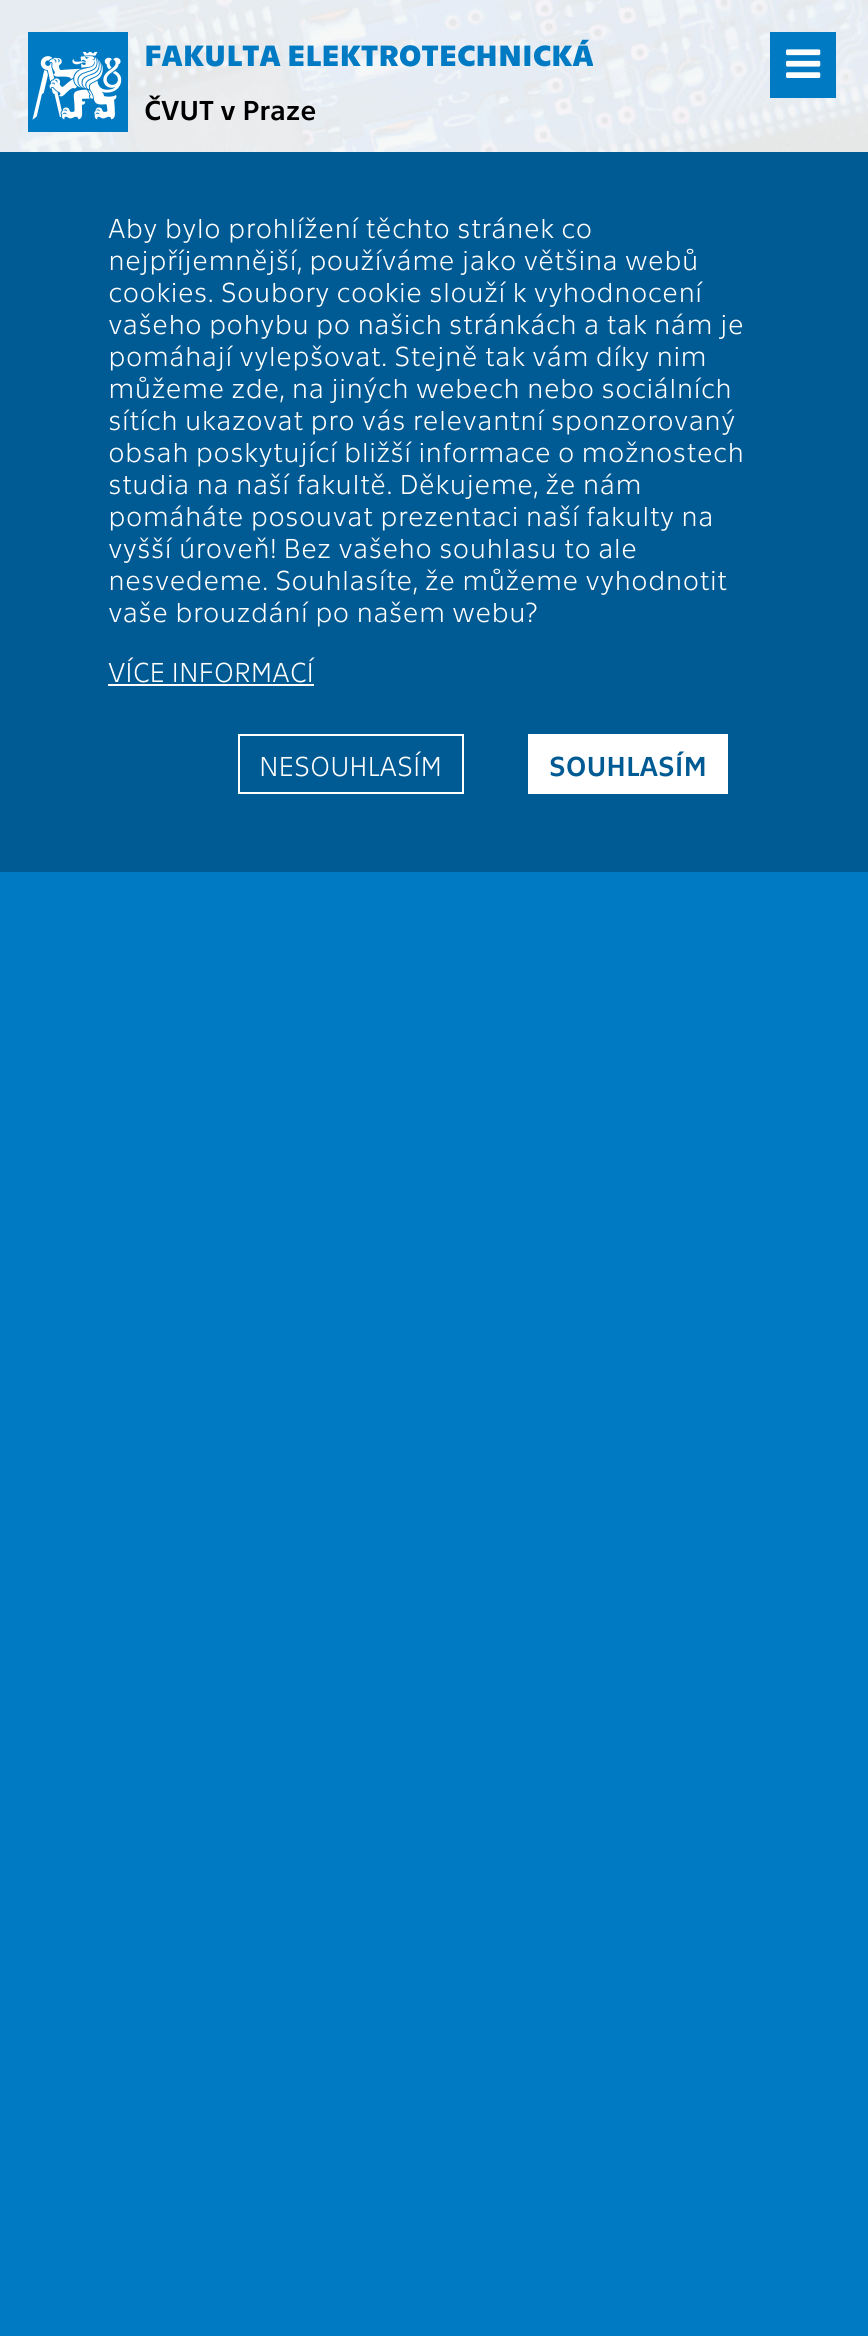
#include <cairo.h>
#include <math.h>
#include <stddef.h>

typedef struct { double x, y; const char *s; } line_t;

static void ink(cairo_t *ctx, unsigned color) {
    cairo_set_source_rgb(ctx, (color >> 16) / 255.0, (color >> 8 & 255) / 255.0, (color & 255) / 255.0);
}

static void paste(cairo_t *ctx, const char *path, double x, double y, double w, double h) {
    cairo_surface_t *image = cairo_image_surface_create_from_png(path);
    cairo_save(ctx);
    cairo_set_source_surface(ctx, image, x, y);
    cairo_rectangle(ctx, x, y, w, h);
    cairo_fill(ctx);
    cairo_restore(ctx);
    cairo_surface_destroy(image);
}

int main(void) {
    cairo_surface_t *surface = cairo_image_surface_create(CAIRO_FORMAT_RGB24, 868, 2336);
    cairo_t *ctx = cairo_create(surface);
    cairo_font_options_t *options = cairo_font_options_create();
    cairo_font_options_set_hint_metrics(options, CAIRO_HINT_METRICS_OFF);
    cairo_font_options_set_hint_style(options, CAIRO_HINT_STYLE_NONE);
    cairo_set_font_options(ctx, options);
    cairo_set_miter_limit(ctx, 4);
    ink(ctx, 0x007AC3);
    cairo_paint(ctx);
    paste(ctx, "media/1.png", 0, 0, 868, 152);
    ink(ctx, 0x007AC3);
    cairo_rectangle(ctx, 28, 32, 100, 100);
    cairo_fill(ctx);
    paste(ctx, "media/2.png", 32, 51, 90, 69);
    cairo_select_font_face(ctx, "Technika", CAIRO_FONT_SLANT_NORMAL, CAIRO_FONT_WEIGHT_BOLD);
    cairo_set_font_size(ctx, 30);
    cairo_move_to(ctx, 144, 66);
    cairo_show_text(ctx, "FAKULTA ELEKTROTECHNICKÁ");
    cairo_rectangle(ctx, 770, 32, 66, 66);
    cairo_fill(ctx);
    paste(ctx, "media/3.png", 786, 49, 35, 29);
    cairo_select_font_face(ctx, "Technika", CAIRO_FONT_SLANT_NORMAL, CAIRO_FONT_WEIGHT_NORMAL);
    cairo_set_font_size(ctx, 28);
    ink(ctx, 0x000000);
    cairo_move_to(ctx, 144, 120);
    cairo_show_text(ctx, "ČVUT v Praze");
    ink(ctx, 0x005A93);
    cairo_rectangle(ctx, 0, 152, 868, 720);
    cairo_fill(ctx);
    cairo_select_font_face(ctx, "Technika Light", CAIRO_FONT_SLANT_NORMAL, CAIRO_FONT_WEIGHT_NORMAL);
    ink(ctx, 0xFFFFFF);
    {
        static const line_t items[] = {
            {108, 238, "Aby bylo prohlížení těchto stránek co"},
            {108, 270, "nejpříjemnější, používáme jako většina webů"},
            {108, 302, "cookies. Soubory cookie slouží k vyhodnocení"},
            {108, 334, "vašeho pohybu po našich stránkách a tak nám je"},
            {108, 366, "pomáhají vylepšovat. Stejně tak vám díky nim"},
            {108, 398, "můžeme zde, na jiných webech nebo sociálních"},
            {108, 430, "sítích ukazovat pro vás relevantní sponzorovaný"},
            {108, 462, "obsah poskytující bližší informace o možnostech"},
            {108, 494, "studia na naší fakultě. Děkujeme, že nám"},
            {108, 526, "pomáháte posouvat prezentaci naší fakulty na"},
            {108, 558, "vyšší úroveň! Bez vašeho souhlasu to ale"},
            {108, 590, "nesvedeme. Souhlasíte, že můžeme vyhodnotit"},
            {108, 622, "vaše brouzdání po našem webu?"},
            {108, 682, "VÍCE INFORMACÍ"},
        };
        for (size_t i = 0; i < sizeof items / sizeof *items; i++) {
            cairo_move_to(ctx, items[i].x, items[i].y);
            cairo_show_text(ctx, items[i].s);
        }
    }
    cairo_rectangle(ctx, 108, 684, 206, 2);
    cairo_fill(ctx);
    cairo_rectangle(ctx, 239, 735, 224, 58);
    cairo_stroke(ctx);
    cairo_move_to(ctx, 259, 776);
    cairo_show_text(ctx, "NESOUHLASÍM");
    cairo_rectangle(ctx, 528, 734, 200, 60);
    cairo_fill(ctx);
    cairo_select_font_face(ctx, "Technika", CAIRO_FONT_SLANT_NORMAL, CAIRO_FONT_WEIGHT_NORMAL);
    ink(ctx, 0x005A93);
    cairo_move_to(ctx, 549, 776);
    cairo_show_text(ctx, "SOUHLASÍM");
    cairo_surface_write_to_png(surface, "image.png");
    cairo_font_options_destroy(options);
    cairo_destroy(ctx);
    cairo_surface_destroy(surface);
    return 0;
}
